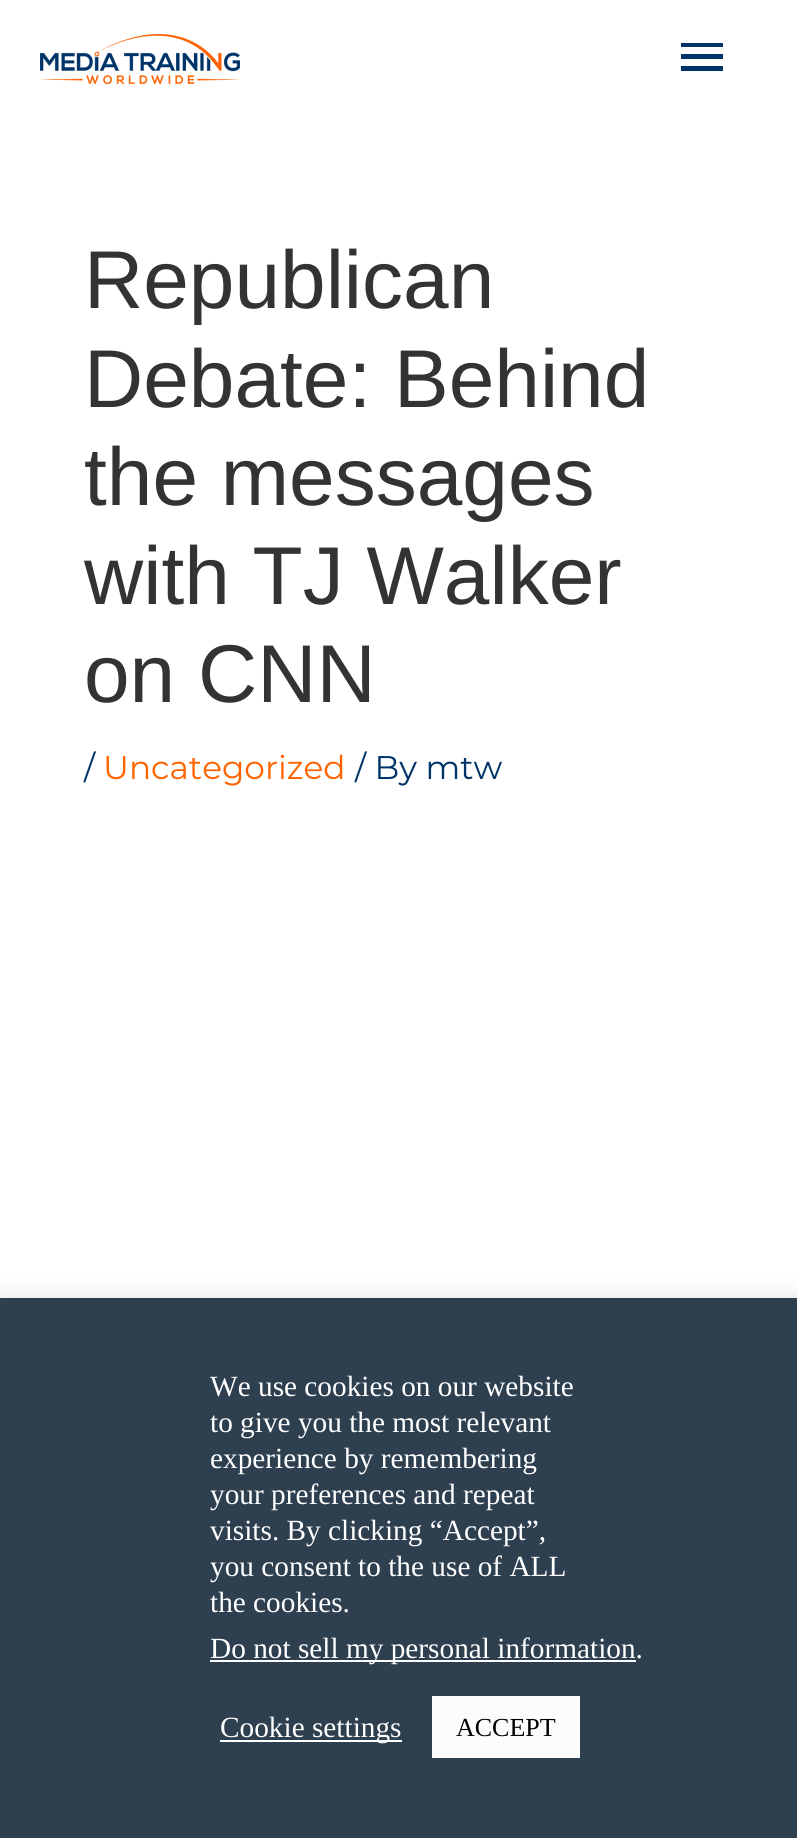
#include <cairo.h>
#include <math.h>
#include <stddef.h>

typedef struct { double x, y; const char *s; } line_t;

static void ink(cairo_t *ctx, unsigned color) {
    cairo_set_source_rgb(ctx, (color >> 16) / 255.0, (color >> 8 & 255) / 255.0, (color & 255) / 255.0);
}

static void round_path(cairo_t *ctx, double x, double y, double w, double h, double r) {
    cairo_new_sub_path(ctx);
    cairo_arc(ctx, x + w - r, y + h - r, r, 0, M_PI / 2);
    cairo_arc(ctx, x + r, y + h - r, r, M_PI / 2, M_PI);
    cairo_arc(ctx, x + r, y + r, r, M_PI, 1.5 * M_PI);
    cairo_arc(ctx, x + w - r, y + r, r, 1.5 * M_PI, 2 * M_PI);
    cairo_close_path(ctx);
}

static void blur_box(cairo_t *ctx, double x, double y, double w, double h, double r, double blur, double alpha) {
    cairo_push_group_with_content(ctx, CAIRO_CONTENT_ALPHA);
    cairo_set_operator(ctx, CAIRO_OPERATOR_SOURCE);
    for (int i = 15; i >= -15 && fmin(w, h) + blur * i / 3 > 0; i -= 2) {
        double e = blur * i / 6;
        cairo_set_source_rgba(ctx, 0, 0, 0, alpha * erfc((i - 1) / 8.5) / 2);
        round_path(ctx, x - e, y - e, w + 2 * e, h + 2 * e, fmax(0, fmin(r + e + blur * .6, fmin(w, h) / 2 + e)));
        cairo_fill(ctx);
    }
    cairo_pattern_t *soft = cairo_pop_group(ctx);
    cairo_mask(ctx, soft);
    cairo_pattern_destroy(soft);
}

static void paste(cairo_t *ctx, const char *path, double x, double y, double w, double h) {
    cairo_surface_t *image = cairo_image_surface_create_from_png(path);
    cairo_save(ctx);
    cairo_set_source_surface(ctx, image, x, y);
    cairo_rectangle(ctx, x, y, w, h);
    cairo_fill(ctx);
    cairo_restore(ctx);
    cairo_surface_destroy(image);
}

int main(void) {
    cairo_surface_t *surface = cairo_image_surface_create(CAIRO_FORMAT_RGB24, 797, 1838);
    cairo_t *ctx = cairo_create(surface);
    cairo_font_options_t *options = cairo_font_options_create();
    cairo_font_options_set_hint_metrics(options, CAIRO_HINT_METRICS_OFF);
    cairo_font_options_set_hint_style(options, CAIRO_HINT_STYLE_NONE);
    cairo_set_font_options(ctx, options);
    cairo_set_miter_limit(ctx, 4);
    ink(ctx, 0xFFFFFF);
    cairo_paint(ctx);
    paste(ctx, "media/1.png", 40, 34, 200, 50);
    ink(ctx, 0x003468);
    cairo_new_path(ctx);
    cairo_move_to(ctx, 681, 43);
    cairo_line_to(ctx, 723, 43);
    cairo_line_to(ctx, 723, 47);
    cairo_line_to(ctx, 681, 47);
    cairo_close_path(ctx);
    cairo_move_to(ctx, 681, 59);
    cairo_line_to(ctx, 681, 54);
    cairo_line_to(ctx, 723, 54);
    cairo_line_to(ctx, 723, 59);
    cairo_close_path(ctx);
    cairo_move_to(ctx, 681, 71);
    cairo_line_to(ctx, 681, 66);
    cairo_line_to(ctx, 723, 66);
    cairo_line_to(ctx, 723, 71);
    cairo_close_path(ctx);
    cairo_fill(ctx);
    cairo_select_font_face(ctx, "Liberation Sans", CAIRO_FONT_SLANT_NORMAL, CAIRO_FONT_WEIGHT_NORMAL);
    cairo_set_font_size(ctx, 82);
    ink(ctx, 0x333333);
    {
        static const line_t items[] = {
            {84, 308, "Republican"},
            {84, 407, "Debate: Behind"},
            {84, 505, "the messages"},
            {84, 604, "with TJ Walker"},
            {84, 702, "on CNN"},
        };
        for (size_t i = 0; i < sizeof items / sizeof *items; i++) {
            cairo_move_to(ctx, items[i].x, items[i].y);
            cairo_show_text(ctx, items[i].s);
        }
    }
    cairo_select_font_face(ctx, "Montserrat", CAIRO_FONT_SLANT_NORMAL, CAIRO_FONT_WEIGHT_NORMAL);
    cairo_set_font_size(ctx, 32.75);
    ink(ctx, 0x003468);
    cairo_move_to(ctx, 84, 779);
    cairo_show_text(ctx, "/");
    ink(ctx, 0xFF6300);
    cairo_move_to(ctx, 103, 779);
    cairo_show_text(ctx, "Uncategorized");
    ink(ctx, 0x003468);
    cairo_move_to(ctx, 355, 779);
    cairo_show_text(ctx, "/ By mtw");
    ink(ctx, 0xACABAB);
    blur_box(ctx, 0, 1296, 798, 540, 0, 10, 0.3);
    ink(ctx, 0x2E3F50);
    cairo_rectangle(ctx, 0, 1298, 797, 540);
    cairo_fill(ctx);
    cairo_select_font_face(ctx, "Liberation Serif", CAIRO_FONT_SLANT_NORMAL, CAIRO_FONT_WEIGHT_NORMAL);
    cairo_set_font_size(ctx, 29.3);
    ink(ctx, 0xFFFFFF);
    {
        static const line_t items[] = {
            {210, 1396, "We use cookies on our website"},
            {210, 1432, "to give you the most relevant"},
            {210, 1468, "experience by remembering"},
            {210, 1504, "your preferences and repeat"},
            {210, 1540, "visits. By clicking “Accept”,"},
            {210, 1576, "you consent to the use of ALL"},
            {210, 1612, "the cookies."},
        };
        for (size_t i = 0; i < sizeof items / sizeof *items; i++) {
            cairo_move_to(ctx, items[i].x, items[i].y);
            cairo_show_text(ctx, items[i].s);
        }
    }
    cairo_rectangle(ctx, 210, 1660, 426, 2);
    cairo_fill(ctx);
    cairo_move_to(ctx, 210, 1658);
    cairo_show_text(ctx, "Do not sell my personal information.");
    cairo_rectangle(ctx, 220, 1740, 182, 2);
    cairo_fill(ctx);
    cairo_move_to(ctx, 220, 1737);
    cairo_show_text(ctx, "Cookie settings");
    ink(ctx, 0xFCFCFC);
    cairo_rectangle(ctx, 432, 1696, 148, 62);
    cairo_fill(ctx);
    cairo_set_font_size(ctx, 26);
    ink(ctx, 0x000000);
    cairo_move_to(ctx, 456, 1736);
    cairo_show_text(ctx, "ACCEPT");
    cairo_surface_write_to_png(surface, "image.png");
    cairo_font_options_destroy(options);
    cairo_destroy(ctx);
    cairo_surface_destroy(surface);
    return 0;
}
